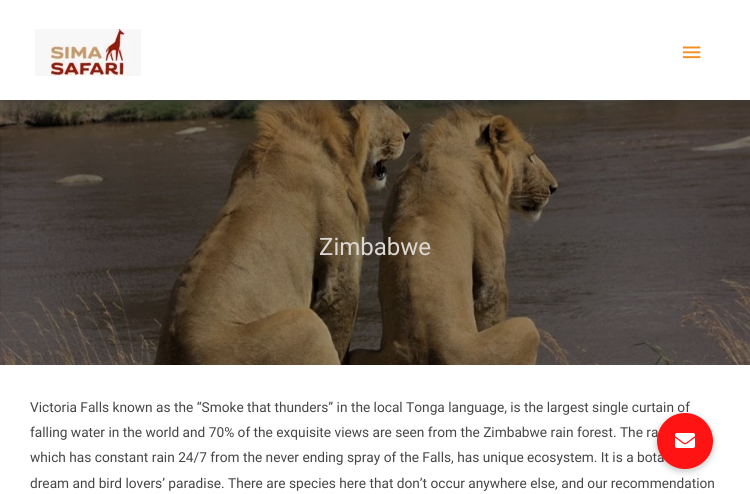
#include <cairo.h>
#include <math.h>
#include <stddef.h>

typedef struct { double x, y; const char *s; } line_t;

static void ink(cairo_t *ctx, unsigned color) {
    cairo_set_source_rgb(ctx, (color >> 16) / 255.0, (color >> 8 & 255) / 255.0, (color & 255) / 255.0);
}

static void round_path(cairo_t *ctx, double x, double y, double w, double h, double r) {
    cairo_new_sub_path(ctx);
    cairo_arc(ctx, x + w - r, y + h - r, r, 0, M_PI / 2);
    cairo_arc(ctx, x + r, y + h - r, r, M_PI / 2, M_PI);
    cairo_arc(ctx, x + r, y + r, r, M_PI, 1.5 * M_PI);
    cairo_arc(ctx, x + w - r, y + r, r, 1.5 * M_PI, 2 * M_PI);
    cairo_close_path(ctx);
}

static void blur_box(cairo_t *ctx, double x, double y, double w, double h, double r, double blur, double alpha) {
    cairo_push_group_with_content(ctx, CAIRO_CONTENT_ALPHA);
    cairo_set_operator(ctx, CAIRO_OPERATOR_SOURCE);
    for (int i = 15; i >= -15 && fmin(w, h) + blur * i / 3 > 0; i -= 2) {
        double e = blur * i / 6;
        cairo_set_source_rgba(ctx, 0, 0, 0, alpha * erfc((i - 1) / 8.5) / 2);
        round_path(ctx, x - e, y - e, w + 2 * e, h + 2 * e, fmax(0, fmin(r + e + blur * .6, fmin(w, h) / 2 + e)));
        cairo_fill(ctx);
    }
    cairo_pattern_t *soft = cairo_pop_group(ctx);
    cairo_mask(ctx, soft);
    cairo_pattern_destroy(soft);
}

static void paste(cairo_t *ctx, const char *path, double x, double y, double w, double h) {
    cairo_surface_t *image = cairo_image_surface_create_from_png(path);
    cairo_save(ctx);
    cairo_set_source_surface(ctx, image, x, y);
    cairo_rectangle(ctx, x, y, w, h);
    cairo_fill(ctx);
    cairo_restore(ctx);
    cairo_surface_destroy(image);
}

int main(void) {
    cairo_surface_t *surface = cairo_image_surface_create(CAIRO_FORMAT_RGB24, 750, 494);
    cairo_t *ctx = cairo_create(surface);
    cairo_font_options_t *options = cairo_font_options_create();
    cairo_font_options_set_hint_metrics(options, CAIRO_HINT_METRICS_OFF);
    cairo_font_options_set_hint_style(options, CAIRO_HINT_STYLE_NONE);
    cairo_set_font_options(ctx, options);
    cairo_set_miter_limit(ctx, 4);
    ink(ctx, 0xFFFFFF);
    cairo_paint(ctx);
    paste(ctx, "media/3.png", 0, 100, 750, 265);
    ink(ctx, 0x333333);
    blur_box(ctx, 0, 1, 750, 100, 0, 10, 1);
    ink(ctx, 0xFFFFFF);
    cairo_rectangle(ctx, 0, 0, 750, 100);
    cairo_fill(ctx);
    paste(ctx, "media/1.png", 35, 29, 106, 47);
    paste(ctx, "media/2.png", 682, 46, 19, 13);
    cairo_select_font_face(ctx, "Roboto", CAIRO_FONT_SLANT_NORMAL, CAIRO_FONT_WEIGHT_NORMAL);
    cairo_set_font_size(ctx, 24);
    ink(ctx, 0xDBD7D2);
    cairo_move_to(ctx, 319, 255);
    cairo_show_text(ctx, "Zimbabwe");
    cairo_set_font_size(ctx, 13.7);
    ink(ctx, 0x464646);
    {
        static const line_t items[] = {
            {30, 412, "Victoria Falls known as the “Smoke that thunders” in the local Tonga language, is the largest single curtain of"},
            {30, 437, "falling water in the world and 70% of the exquisite views are seen from the Zimbabwe rain forest. The ra"},
            {30, 462, "which has constant rain 24/7 from the never ending spray of the Falls, has unique ecosystem. It is a bota"},
            {30, 488, "dream and bird lovers’ paradise. There are species here that don’t occur anywhere else, and our recommendation"},
        };
        for (size_t i = 0; i < sizeof items / sizeof *items; i++) {
            cairo_move_to(ctx, items[i].x, items[i].y);
            cairo_show_text(ctx, items[i].s);
        }
    }
    ink(ctx, 0x000000);
    blur_box(ctx, 656, 414, 58, 58, 29, 3, 0.2);
    ink(ctx, 0xFF1313);
    cairo_arc(ctx, 685, 441, 28, 0, 2 * M_PI);
    cairo_fill(ctx);
    paste(ctx, "media/4.png", 675, 433, 20, 15);
    cairo_surface_write_to_png(surface, "image.png");
    cairo_font_options_destroy(options);
    cairo_destroy(ctx);
    cairo_surface_destroy(surface);
    return 0;
}
